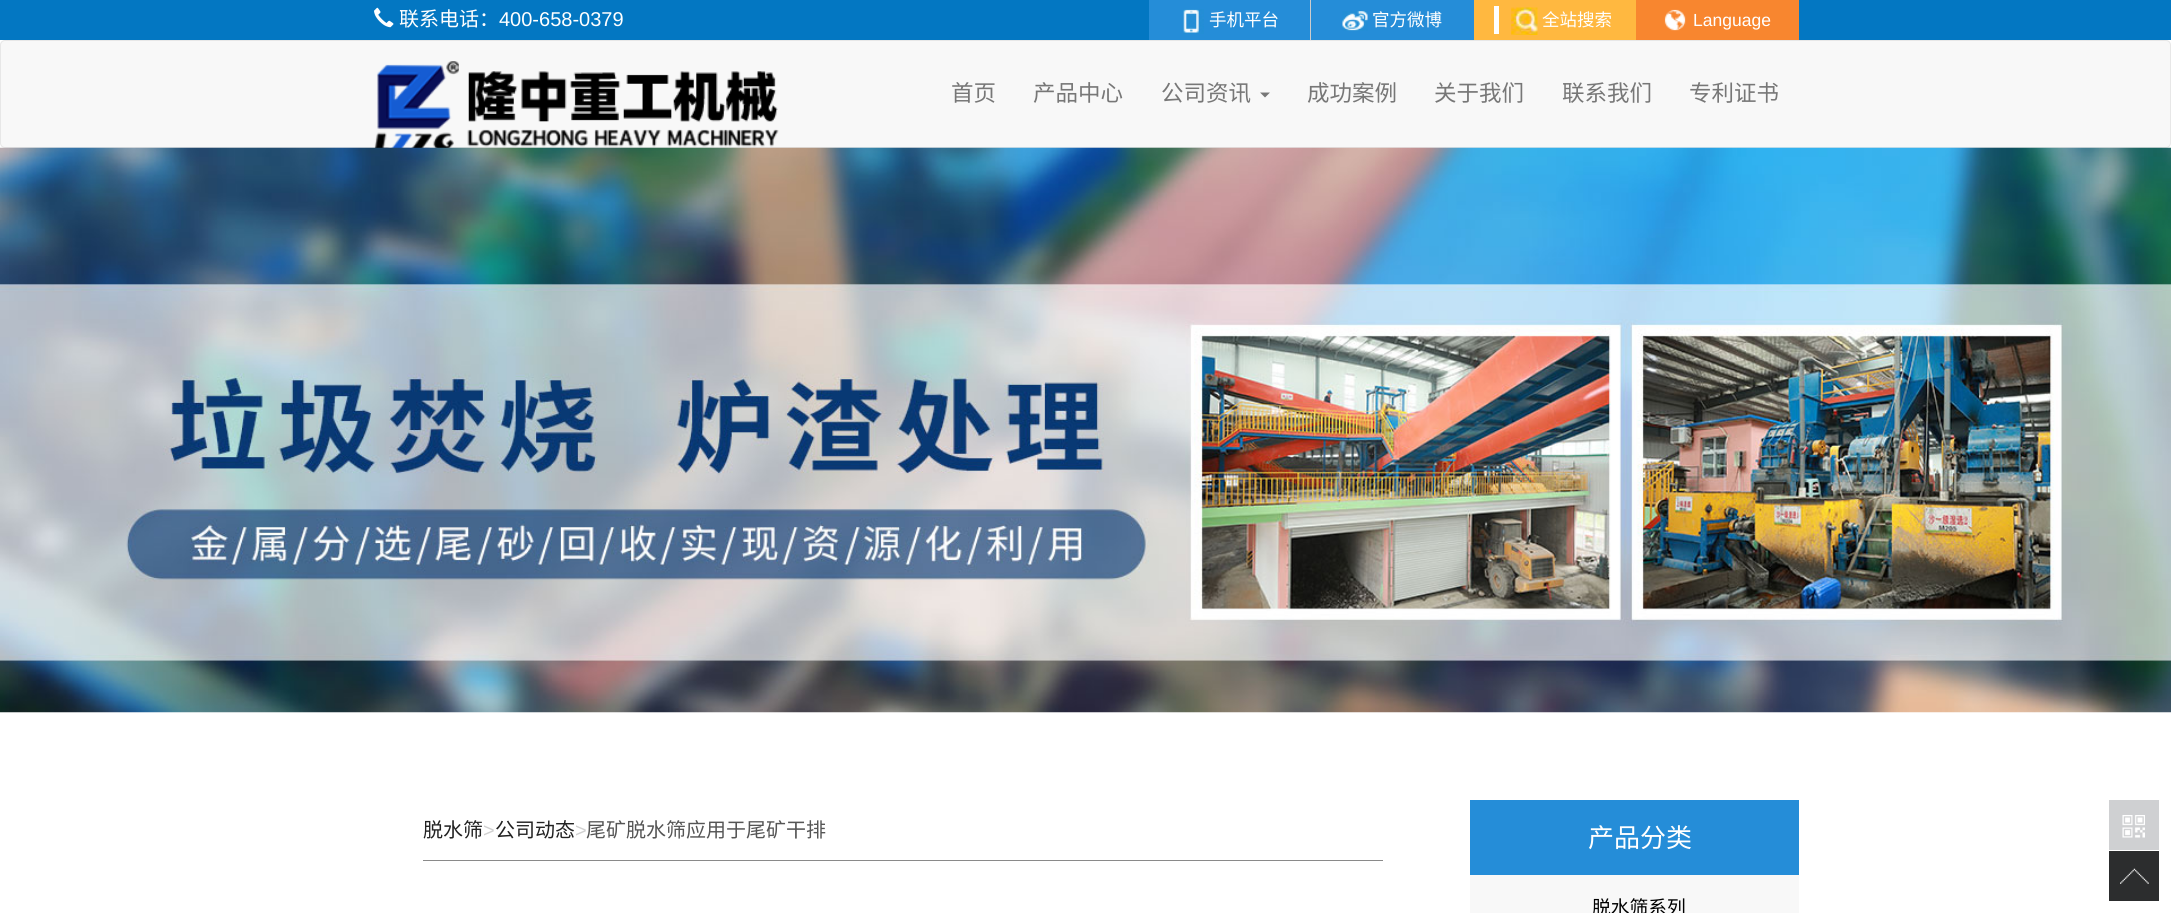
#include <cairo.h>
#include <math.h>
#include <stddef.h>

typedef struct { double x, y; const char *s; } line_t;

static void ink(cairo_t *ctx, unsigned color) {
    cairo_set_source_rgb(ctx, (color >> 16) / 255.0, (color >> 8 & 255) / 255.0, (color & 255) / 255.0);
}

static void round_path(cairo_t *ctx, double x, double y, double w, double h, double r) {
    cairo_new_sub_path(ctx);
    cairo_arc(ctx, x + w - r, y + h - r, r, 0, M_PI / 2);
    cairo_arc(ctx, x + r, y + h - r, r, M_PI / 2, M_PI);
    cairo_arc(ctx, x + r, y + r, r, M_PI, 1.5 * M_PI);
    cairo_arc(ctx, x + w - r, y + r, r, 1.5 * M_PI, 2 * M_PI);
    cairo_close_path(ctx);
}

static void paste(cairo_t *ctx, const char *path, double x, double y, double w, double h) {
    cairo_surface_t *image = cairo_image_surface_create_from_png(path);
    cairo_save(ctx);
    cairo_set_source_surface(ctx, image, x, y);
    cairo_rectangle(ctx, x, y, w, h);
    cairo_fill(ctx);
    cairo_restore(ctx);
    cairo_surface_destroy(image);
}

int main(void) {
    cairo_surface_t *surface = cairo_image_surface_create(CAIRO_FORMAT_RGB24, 2171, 913);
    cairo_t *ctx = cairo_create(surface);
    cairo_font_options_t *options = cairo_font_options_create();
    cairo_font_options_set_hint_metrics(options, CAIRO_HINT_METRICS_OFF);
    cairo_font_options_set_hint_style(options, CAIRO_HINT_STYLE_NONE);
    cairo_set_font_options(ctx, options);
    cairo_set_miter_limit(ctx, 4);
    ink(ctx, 0xFFFFFF);
    cairo_paint(ctx);
    ink(ctx, 0x0377C2);
    cairo_rectangle(ctx, 0, 0, 2171, 40);
    cairo_fill(ctx);
    paste(ctx, "media/1.png", 374, 7, 20, 21);
    cairo_select_font_face(ctx, "Noto Sans CJK SC", CAIRO_FONT_SLANT_NORMAL, CAIRO_FONT_WEIGHT_NORMAL);
    cairo_set_font_size(ctx, 20);
    ink(ctx, 0xFFFFFF);
    cairo_move_to(ctx, 399, 26);
    cairo_show_text(ctx, "联系电话：");
    cairo_select_font_face(ctx, "Liberation Sans", CAIRO_FONT_SLANT_NORMAL, CAIRO_FONT_WEIGHT_NORMAL);
    cairo_move_to(ctx, 499, 26);
    cairo_show_text(ctx, "400-658-0379");
    ink(ctx, 0xCCCCCC);
    cairo_rectangle(ctx, 1310, 0, 1, 40);
    cairo_fill(ctx);
    ink(ctx, 0x258DD8);
    cairo_rectangle(ctx, 1149, 0, 161, 40);
    cairo_fill(ctx);
    paste(ctx, "media/2.png", 1183, 9, 21, 25);
    cairo_select_font_face(ctx, "Noto Sans CJK SC", CAIRO_FONT_SLANT_NORMAL, CAIRO_FONT_WEIGHT_NORMAL);
    cairo_set_font_size(ctx, 17.5);
    ink(ctx, 0xFFFFFF);
    cairo_move_to(ctx, 1209, 26);
    cairo_show_text(ctx, "手机平台");
    ink(ctx, 0x258DD8);
    cairo_rectangle(ctx, 1311, 0, 163, 40);
    cairo_fill(ctx);
    paste(ctx, "media/3.png", 1342, 11, 26, 20);
    ink(ctx, 0xFFFFFF);
    cairo_move_to(ctx, 1372, 26);
    cairo_show_text(ctx, "官方微博");
    ink(ctx, 0xFFB840);
    cairo_rectangle(ctx, 1474, 0, 162, 40);
    cairo_fill(ctx);
    ink(ctx, 0xFFFFFF);
    cairo_rectangle(ctx, 1494, 6, 5, 28);
    cairo_fill(ctx);
    paste(ctx, "media/4.png", 1511, 7, 27, 28);
    cairo_move_to(ctx, 1542, 26);
    cairo_show_text(ctx, "全站搜索");
    ink(ctx, 0xF8862F);
    cairo_rectangle(ctx, 1636, 0, 163, 40);
    cairo_fill(ctx);
    paste(ctx, "media/5.png", 1664, 9, 22, 22);
    cairo_select_font_face(ctx, "Liberation Sans", CAIRO_FONT_SLANT_NORMAL, CAIRO_FONT_WEIGHT_NORMAL);
    ink(ctx, 0xFFFFFF);
    cairo_move_to(ctx, 1693, 26);
    cairo_show_text(ctx, "Language");
    ink(ctx, 0xF8F8F8);
    round_path(ctx, 0.5, 40.5, 2170, 107, 4.5);
    cairo_fill_preserve(ctx);
    ink(ctx, 0xE7E7E7);
    cairo_set_line_width(ctx, 1);
    cairo_stroke(ctx);
    paste(ctx, "media/6.png", 374, 61, 405, 87);
    cairo_select_font_face(ctx, "Noto Sans CJK SC", CAIRO_FONT_SLANT_NORMAL, CAIRO_FONT_WEIGHT_NORMAL);
    cairo_set_font_size(ctx, 22.5);
    ink(ctx, 0x777777);
    {
        static const line_t items[] = {
            {951, 101, "首页"},
            {1033, 101, "产品中心"},
            {1161, 101, "公司资讯"},
        };
        for (size_t i = 0; i < sizeof items / sizeof *items; i++) {
            cairo_move_to(ctx, items[i].x, items[i].y);
            cairo_show_text(ctx, items[i].s);
        }
    }
    cairo_new_path(ctx);
    cairo_move_to(ctx, 1260, 92.5);
    cairo_line_to(ctx, 1270, 92.5);
    cairo_line_to(ctx, 1265, 97.5);
    cairo_close_path(ctx);
    cairo_fill(ctx);
    {
        static const line_t items[] = {
            {1307, 101, "成功案例"},
            {1434, 101, "关于我们"},
            {1562, 101, "联系我们"},
            {1689, 101, "专利证书"},
        };
        for (size_t i = 0; i < sizeof items / sizeof *items; i++) {
            cairo_move_to(ctx, items[i].x, items[i].y);
            cairo_show_text(ctx, items[i].s);
        }
    }
    paste(ctx, "media/7.png", 0, 147, 2171, 566);
    ink(ctx, 0x8A8A8A);
    cairo_rectangle(ctx, 423, 860, 960, 1);
    cairo_fill(ctx);
    cairo_set_font_size(ctx, 20);
    ink(ctx, 0x222222);
    cairo_move_to(ctx, 423, 837);
    cairo_show_text(ctx, "脱水筛");
    cairo_select_font_face(ctx, "Liberation Sans", CAIRO_FONT_SLANT_NORMAL, CAIRO_FONT_WEIGHT_NORMAL);
    ink(ctx, 0xD0D0D0);
    cairo_move_to(ctx, 483, 837);
    cairo_show_text(ctx, ">");
    cairo_select_font_face(ctx, "Noto Sans CJK SC", CAIRO_FONT_SLANT_NORMAL, CAIRO_FONT_WEIGHT_NORMAL);
    ink(ctx, 0x222222);
    cairo_move_to(ctx, 495, 837);
    cairo_show_text(ctx, "公司动态");
    cairo_select_font_face(ctx, "Liberation Sans", CAIRO_FONT_SLANT_NORMAL, CAIRO_FONT_WEIGHT_NORMAL);
    ink(ctx, 0xD0D0D0);
    cairo_move_to(ctx, 575, 837);
    cairo_show_text(ctx, ">");
    cairo_select_font_face(ctx, "Noto Sans CJK SC", CAIRO_FONT_SLANT_NORMAL, CAIRO_FONT_WEIGHT_NORMAL);
    ink(ctx, 0x555555);
    cairo_move_to(ctx, 586, 837);
    cairo_show_text(ctx, "尾矿脱水筛应用于尾矿干排");
    ink(ctx, 0x258DD8);
    cairo_rectangle(ctx, 1470, 800, 329, 75);
    cairo_fill(ctx);
    cairo_set_font_size(ctx, 26);
    ink(ctx, 0xFFFFFF);
    cairo_move_to(ctx, 1588, 847);
    cairo_show_text(ctx, "产品分类");
    ink(ctx, 0xF8F8F8);
    cairo_rectangle(ctx, 1470, 875, 329, 38);
    cairo_fill(ctx);
    cairo_set_font_size(ctx, 18.75);
    ink(ctx, 0x000000);
    cairo_move_to(ctx, 1592, 914);
    cairo_show_text(ctx, "脱水筛系列");
    ink(ctx, 0xCFD0D2);
    cairo_rectangle(ctx, 2109, 800, 50, 50);
    cairo_fill(ctx);
    paste(ctx, "media/8.png", 2122, 815, 23, 23);
    ink(ctx, 0x2C2D2E);
    cairo_rectangle(ctx, 2109, 851, 50, 50);
    cairo_fill(ctx);
    paste(ctx, "media/9.png", 2120, 868, 29, 16);
    cairo_surface_write_to_png(surface, "image.png");
    cairo_font_options_destroy(options);
    cairo_destroy(ctx);
    cairo_surface_destroy(surface);
    return 0;
}
